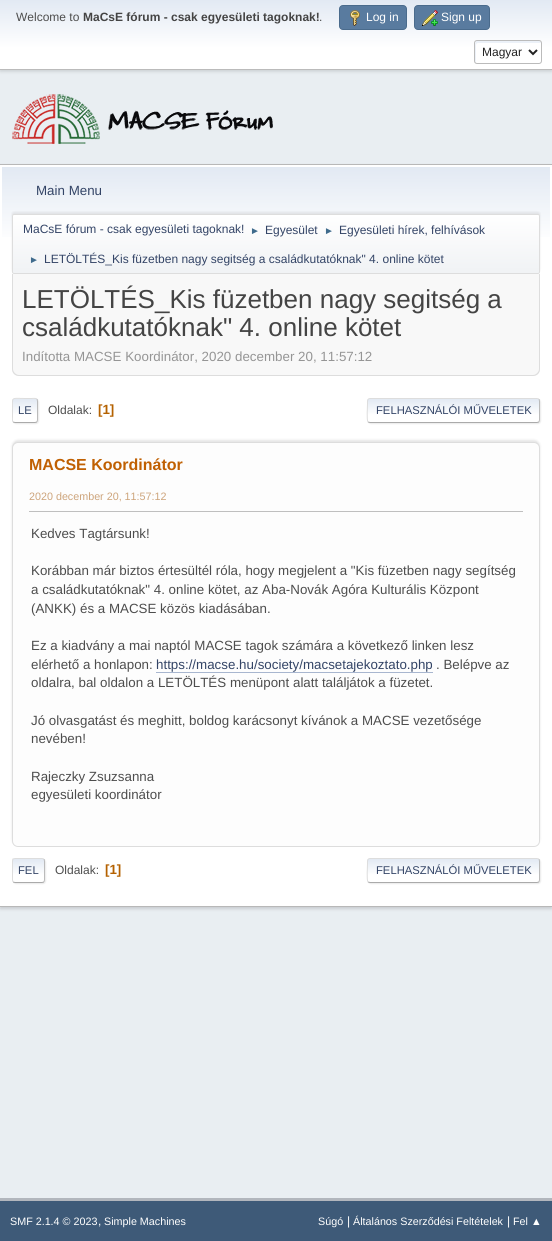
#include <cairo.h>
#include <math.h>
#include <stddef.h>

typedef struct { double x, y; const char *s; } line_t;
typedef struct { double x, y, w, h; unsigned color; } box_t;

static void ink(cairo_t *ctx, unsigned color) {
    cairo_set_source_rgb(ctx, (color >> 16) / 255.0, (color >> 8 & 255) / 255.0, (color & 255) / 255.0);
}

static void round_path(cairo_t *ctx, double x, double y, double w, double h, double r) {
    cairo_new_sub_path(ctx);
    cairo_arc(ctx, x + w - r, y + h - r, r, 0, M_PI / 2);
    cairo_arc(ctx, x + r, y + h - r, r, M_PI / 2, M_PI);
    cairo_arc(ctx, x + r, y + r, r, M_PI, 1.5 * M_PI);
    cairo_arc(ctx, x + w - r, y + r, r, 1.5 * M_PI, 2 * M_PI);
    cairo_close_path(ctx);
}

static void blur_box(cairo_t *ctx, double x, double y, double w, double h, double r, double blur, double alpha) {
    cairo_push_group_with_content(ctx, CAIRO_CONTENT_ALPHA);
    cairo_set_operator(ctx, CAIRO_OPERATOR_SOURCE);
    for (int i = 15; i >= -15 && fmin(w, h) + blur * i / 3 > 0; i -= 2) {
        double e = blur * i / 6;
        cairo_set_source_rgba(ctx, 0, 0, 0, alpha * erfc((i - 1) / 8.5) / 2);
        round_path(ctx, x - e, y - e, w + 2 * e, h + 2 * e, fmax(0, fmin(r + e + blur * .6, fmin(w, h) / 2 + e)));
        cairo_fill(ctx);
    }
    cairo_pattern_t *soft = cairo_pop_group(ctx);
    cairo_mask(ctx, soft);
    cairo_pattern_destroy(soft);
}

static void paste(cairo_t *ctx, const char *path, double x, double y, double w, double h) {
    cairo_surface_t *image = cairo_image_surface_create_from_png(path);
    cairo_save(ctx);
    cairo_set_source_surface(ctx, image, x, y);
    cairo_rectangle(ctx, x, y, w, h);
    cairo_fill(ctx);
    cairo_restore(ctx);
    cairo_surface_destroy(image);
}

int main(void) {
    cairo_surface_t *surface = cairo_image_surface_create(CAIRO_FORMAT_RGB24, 552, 1241);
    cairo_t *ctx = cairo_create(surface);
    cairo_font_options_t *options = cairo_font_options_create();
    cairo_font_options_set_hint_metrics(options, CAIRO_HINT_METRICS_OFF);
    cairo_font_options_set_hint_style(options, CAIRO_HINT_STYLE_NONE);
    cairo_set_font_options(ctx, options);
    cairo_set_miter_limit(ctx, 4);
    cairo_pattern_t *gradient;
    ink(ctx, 0xE9EEF2);
    cairo_paint(ctx);
    ink(ctx, 0x000000);
    blur_box(ctx, 0, 1, 552, 70, 0, 2, 0.16);
    gradient = cairo_pattern_create_linear(276, 0, 276, 69);
    cairo_pattern_add_color_stop_rgba(gradient, 0, 0.886, 0.914, 0.953, 1);
    cairo_pattern_add_color_stop_rgba(gradient, 0.7, 1, 1, 1, 1);
    cairo_set_source(ctx, gradient);
    cairo_pattern_destroy(gradient);
    cairo_rectangle(ctx, 0, 0, 552, 69);
    cairo_fill(ctx);
    ink(ctx, 0xBBBBBB);
    cairo_rectangle(ctx, 0, 69, 552, 1);
    cairo_fill(ctx);
    cairo_select_font_face(ctx, "Liberation Sans", CAIRO_FONT_SLANT_NORMAL, CAIRO_FONT_WEIGHT_NORMAL);
    cairo_set_font_size(ctx, 12);
    ink(ctx, 0x4D4D4D);
    cairo_move_to(ctx, 16, 21);
    cairo_show_text(ctx, "Welcome to");
    cairo_select_font_face(ctx, "Liberation Sans", CAIRO_FONT_SLANT_NORMAL, CAIRO_FONT_WEIGHT_BOLD);
    ink(ctx, 0x444444);
    cairo_move_to(ctx, 83, 21);
    cairo_show_text(ctx, "MaCsE fórum - csak egyesületi tagoknak!");
    cairo_select_font_face(ctx, "Liberation Sans", CAIRO_FONT_SLANT_NORMAL, CAIRO_FONT_WEIGHT_NORMAL);
    ink(ctx, 0x4D4D4D);
    cairo_move_to(ctx, 319, 21);
    cairo_show_text(ctx, ".");
    ink(ctx, 0x597B9F);
    round_path(ctx, 339.5, 5.5, 67, 24, 3.5);
    cairo_fill_preserve(ctx);
    ink(ctx, 0x4A6B8C);
    cairo_set_line_width(ctx, 1);
    cairo_stroke(ctx);
    paste(ctx, "media/1.png", 350, 10, 10, 16);
    ink(ctx, 0xFFFFFF);
    cairo_move_to(ctx, 366, 21);
    cairo_show_text(ctx, "Log in");
    ink(ctx, 0x597B9F);
    round_path(ctx, 414.5, 5.5, 75, 24, 3.5);
    cairo_fill_preserve(ctx);
    ink(ctx, 0x4A6B8C);
    cairo_stroke(ctx);
    paste(ctx, "media/2.png", 422, 10, 16, 16);
    ink(ctx, 0xFFFFFF);
    cairo_move_to(ctx, 441, 21);
    cairo_show_text(ctx, "Sign up");
    round_path(ctx, 474, 40, 68, 24, 3);
    cairo_fill(ctx);
    ink(ctx, 0xECF1F8);
    cairo_new_path(ctx);
    cairo_move_to(ctx, 478, 43);
    cairo_line_to(ctx, 541, 43);
    cairo_line_to(ctx, 540, 41);
    cairo_line_to(ctx, 487, 41);
    cairo_curve_to(ctx, 478, 41, 475, 38, 475, 46);
    cairo_curve_to(ctx, 475, 49, 474, 61, 476, 63);
    cairo_line_to(ctx, 476, 45);
    cairo_curve_to(ctx, 476, 44, 477, 43, 478, 43);
    cairo_close_path(ctx);
    cairo_fill(ctx);
    round_path(ctx, 474.5, 40.5, 67, 23, 2.5);
    ink(ctx, 0xBBBBBB);
    cairo_stroke(ctx);
    cairo_new_path(ctx);
    cairo_move_to(ctx, 529, 50);
    cairo_line_to(ctx, 533, 54);
    cairo_line_to(ctx, 537, 50);
    ink(ctx, 0x222222);
    cairo_set_line_width(ctx, 2);
    cairo_stroke(ctx);
    cairo_move_to(ctx, 482, 56);
    cairo_show_text(ctx, "Magyar");
    paste(ctx, "media/3.png", 12, 94, 261, 50);
    ink(ctx, 0x000000);
    blur_box(ctx, 0, 166, 552, 743, 0, 1.5, 0.14);
    {
        static const box_t items[] = {
            {0, 165, 552, 741, 0xFFFFFF},
            {0, 164, 552, 1, 0xB8B8B8},
            {0, 906, 552, 1, 0xB8B8B8},
        };
        for (size_t i = 0; i < sizeof items / sizeof *items; i++) {
            ink(ctx, items[i].color);
            cairo_rectangle(ctx, items[i].x, items[i].y, items[i].w, items[i].h);
            cairo_fill(ctx);
        }
    }
    gradient = cairo_pattern_create_linear(276, 167, 276, 276);
    cairo_pattern_add_color_stop_rgba(gradient, 0, 0.886, 0.914, 0.953, 1);
    cairo_pattern_add_color_stop_rgba(gradient, 0.7, 1, 1, 1, 1);
    cairo_set_source(ctx, gradient);
    cairo_pattern_destroy(gradient);
    cairo_rectangle(ctx, 2, 167, 548, 70);
    cairo_fill(ctx);
    cairo_set_font_size(ctx, 13.35);
    ink(ctx, 0x334466);
    cairo_move_to(ctx, 36, 195);
    cairo_show_text(ctx, "Main Menu");
    ink(ctx, 0x000000);
    blur_box(ctx, 12, 212, 528, 60, 2, 1, 0.08);
    cairo_save(ctx);
    round_path(ctx, 12, 214, 528, 60, 2);
    cairo_clip(ctx);
    gradient = cairo_pattern_create_linear(276, 215, 276, 273);
    cairo_pattern_add_color_stop_rgba(gradient, 0, 1, 1, 1, 1);
    cairo_pattern_add_color_stop_rgba(gradient, 0.95, 0.945, 0.953, 0.961, 1);
    cairo_set_source(ctx, gradient);
    cairo_pattern_destroy(gradient);
    cairo_rectangle(ctx, 12, 215, 528, 58);
    cairo_fill(ctx);
    cairo_restore(ctx);
    round_path(ctx, 12.5, 214.5, 527, 59, 1.5);
    ink(ctx, 0xDDDDDD);
    cairo_set_line_width(ctx, 1);
    cairo_stroke(ctx);
    cairo_set_font_size(ctx, 12);
    ink(ctx, 0x334466);
    cairo_move_to(ctx, 23, 233);
    cairo_show_text(ctx, "MaCsE fórum - csak egyesületi tagoknak!");
    cairo_set_font_size(ctx, 10);
    ink(ctx, 0x3F6B8C);
    cairo_move_to(ctx, 250, 234);
    cairo_show_text(ctx, "►");
    cairo_set_font_size(ctx, 12);
    ink(ctx, 0x334466);
    cairo_move_to(ctx, 265, 234);
    cairo_show_text(ctx, "Egyesület");
    cairo_set_font_size(ctx, 10);
    ink(ctx, 0x3F6B8C);
    cairo_move_to(ctx, 324, 234);
    cairo_show_text(ctx, "►");
    cairo_set_font_size(ctx, 12);
    ink(ctx, 0x334466);
    cairo_move_to(ctx, 339, 234);
    cairo_show_text(ctx, "Egyesületi hírek, felhívások");
    cairo_set_font_size(ctx, 10);
    ink(ctx, 0x3F6B8C);
    cairo_move_to(ctx, 29, 263);
    cairo_show_text(ctx, "►");
    cairo_set_font_size(ctx, 12);
    ink(ctx, 0x334466);
    cairo_move_to(ctx, 44, 263);
    cairo_show_text(ctx, "LETÖLTÉS_Kis füzetben nagy segitség a családkutatóknak\" 4. online kötet");
    ink(ctx, 0xF8F8F8);
    cairo_new_path(ctx);
    cairo_move_to(ctx, 12, 274);
    cairo_line_to(ctx, 540, 274);
    cairo_line_to(ctx, 540, 369);
    cairo_curve_to(ctx, 540, 373, 537, 376, 533, 376);
    cairo_line_to(ctx, 19, 376);
    cairo_curve_to(ctx, 15, 376, 12, 373, 12, 369);
    cairo_close_path(ctx);
    cairo_fill(ctx);
    ink(ctx, 0xDDDDDD);
    cairo_set_fill_rule(ctx, CAIRO_FILL_RULE_EVEN_ODD);
    cairo_new_path(ctx);
    cairo_move_to(ctx, 12, 274);
    cairo_line_to(ctx, 540, 274);
    cairo_line_to(ctx, 540, 369);
    cairo_curve_to(ctx, 540, 373, 537, 376, 533, 376);
    cairo_line_to(ctx, 19, 376);
    cairo_curve_to(ctx, 15, 376, 12, 373, 12, 369);
    cairo_close_path(ctx);
    cairo_move_to(ctx, 13, 274);
    cairo_line_to(ctx, 539, 274);
    cairo_line_to(ctx, 539, 369);
    cairo_curve_to(ctx, 539, 372, 536, 375, 533, 375);
    cairo_line_to(ctx, 19, 375);
    cairo_curve_to(ctx, 16, 375, 13, 372, 13, 369);
    cairo_close_path(ctx);
    cairo_fill(ctx);
    cairo_set_font_size(ctx, 26);
    ink(ctx, 0x444444);
    cairo_move_to(ctx, 22, 308);
    cairo_show_text(ctx, "LETÖLTÉS_Kis füzetben nagy segitség a");
    cairo_move_to(ctx, 22, 336);
    cairo_show_text(ctx, "családkutatóknak\" 4. online kötet");
    cairo_set_font_size(ctx, 13.35);
    ink(ctx, 0x959595);
    cairo_move_to(ctx, 22, 361);
    cairo_show_text(ctx, "Indította MACSE Koordinátor, 2020 december 20, 11:57:12");
    ink(ctx, 0xDDDDDD);
    blur_box(ctx, 13, 399, 26, 25, 3, 0.5, 0.57);
    cairo_save(ctx);
    cairo_set_fill_rule(ctx, CAIRO_FILL_RULE_WINDING);
    round_path(ctx, 12, 398, 26, 25, 3);
    cairo_clip(ctx);
    gradient = cairo_pattern_create_linear(25, 399, 25, 422);
    cairo_pattern_add_color_stop_rgba(gradient, 0, 0.886, 0.914, 0.953, 1);
    cairo_pattern_add_color_stop_rgba(gradient, 0.7, 1, 1, 1, 1);
    cairo_set_source(ctx, gradient);
    cairo_pattern_destroy(gradient);
    cairo_rectangle(ctx, 12, 399, 26, 23);
    cairo_fill(ctx);
    cairo_restore(ctx);
    cairo_new_path(ctx);
    cairo_move_to(ctx, 37, 399);
    cairo_curve_to(ctx, 37, 399.5, 37.5, 400.5, 37.5, 401);
    cairo_line_to(ctx, 37.5, 420);
    cairo_curve_to(ctx, 37.5, 420.5, 37, 421.5, 37, 422);
    ink(ctx, 0xBBBBBB);
    cairo_stroke(ctx);
    cairo_new_path(ctx);
    cairo_move_to(ctx, 37, 422);
    cairo_curve_to(ctx, 36.5, 422, 35.5, 422.5, 35, 422.5);
    cairo_line_to(ctx, 15, 422.5);
    cairo_curve_to(ctx, 14.5, 422.5, 13.5, 422, 13, 422);
    ink(ctx, 0xAAAAAA);
    cairo_stroke(ctx);
    cairo_save(ctx);
    cairo_set_fill_rule(ctx, CAIRO_FILL_RULE_WINDING);
    cairo_rectangle(ctx, 12, 391, 528, 39);
    cairo_clip(ctx);
    cairo_new_path(ctx);
    cairo_move_to(ctx, 13, 422);
    cairo_curve_to(ctx, 12, 420.5, 12.5, 418, 12.5, 417);
    cairo_line_to(ctx, 12.5, 410.5);
    cairo_curve_to(ctx, 12.5, 396, 10.5, 398.5, 25, 398.5);
    cairo_line_to(ctx, 31.5, 398.5);
    cairo_curve_to(ctx, 33, 398.5, 35.5, 398, 37, 399);
    ink(ctx, 0xDDDDDD);
    cairo_stroke(ctx);
    cairo_restore(ctx);
    cairo_set_font_size(ctx, 11.25);
    ink(ctx, 0x334466);
    cairo_move_to(ctx, 18, 414);
    cairo_show_text(ctx, "LE");
    cairo_set_font_size(ctx, 12);
    ink(ctx, 0x4D4D4D);
    cairo_move_to(ctx, 48, 414);
    cairo_show_text(ctx, "Oldalak:");
    cairo_select_font_face(ctx, "Liberation Sans", CAIRO_FONT_SLANT_NORMAL, CAIRO_FONT_WEIGHT_BOLD);
    cairo_set_font_size(ctx, 13.35);
    ink(ctx, 0xB46100);
    cairo_move_to(ctx, 98, 414);
    cairo_show_text(ctx, "[1]");
    cairo_save(ctx);
    cairo_new_path(ctx);
    cairo_move_to(ctx, 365, 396);
    cairo_line_to(ctx, 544, 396);
    cairo_line_to(ctx, 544, 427);
    cairo_line_to(ctx, 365, 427);
    cairo_close_path(ctx);
    cairo_move_to(ctx, 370, 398);
    cairo_line_to(ctx, 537, 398);
    cairo_curve_to(ctx, 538.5, 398, 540, 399.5, 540, 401);
    cairo_line_to(ctx, 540, 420);
    cairo_curve_to(ctx, 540, 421.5, 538.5, 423, 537, 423);
    cairo_line_to(ctx, 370, 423);
    cairo_curve_to(ctx, 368.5, 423, 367, 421.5, 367, 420);
    cairo_line_to(ctx, 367, 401);
    cairo_curve_to(ctx, 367, 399.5, 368.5, 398, 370, 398);
    cairo_close_path(ctx);
    cairo_clip(ctx);
    ink(ctx, 0xDDDDDD);
    blur_box(ctx, 368, 399, 173, 25, 3, 0.5, 0.57);
    cairo_restore(ctx);
    cairo_save(ctx);
    cairo_set_fill_rule(ctx, CAIRO_FILL_RULE_WINDING);
    round_path(ctx, 367, 398, 173, 25, 3);
    cairo_clip(ctx);
    gradient = cairo_pattern_create_linear(454, 399, 454, 422);
    cairo_pattern_add_color_stop_rgba(gradient, 0, 0.886, 0.914, 0.953, 1);
    cairo_pattern_add_color_stop_rgba(gradient, 0.7, 1, 1, 1, 1);
    cairo_set_source(ctx, gradient);
    cairo_pattern_destroy(gradient);
    cairo_rectangle(ctx, 367, 399, 173, 23);
    cairo_fill(ctx);
    cairo_restore(ctx);
    cairo_new_path(ctx);
    cairo_move_to(ctx, 539, 399);
    cairo_curve_to(ctx, 539, 399.5, 539.5, 400.5, 539.5, 401);
    cairo_line_to(ctx, 539.5, 420);
    cairo_curve_to(ctx, 539.5, 420.5, 539, 421.5, 539, 422);
    ink(ctx, 0xBBBBBB);
    cairo_stroke(ctx);
    cairo_new_path(ctx);
    cairo_move_to(ctx, 539, 422);
    cairo_line_to(ctx, 537, 422.5);
    cairo_line_to(ctx, 370, 422.5);
    cairo_line_to(ctx, 368, 422);
    ink(ctx, 0xAAAAAA);
    cairo_stroke(ctx);
    cairo_new_path(ctx);
    cairo_move_to(ctx, 368, 422);
    cairo_curve_to(ctx, 366.5, 420, 367.5, 407, 367.5, 404);
    cairo_curve_to(ctx, 367.5, 402, 367, 398.5, 370, 398.5);
    cairo_line_to(ctx, 537, 398.5);
    cairo_line_to(ctx, 539, 399);
    ink(ctx, 0xDDDDDD);
    cairo_stroke(ctx);
    cairo_select_font_face(ctx, "Liberation Sans", CAIRO_FONT_SLANT_NORMAL, CAIRO_FONT_WEIGHT_NORMAL);
    cairo_set_font_size(ctx, 11.25);
    ink(ctx, 0x334466);
    cairo_move_to(ctx, 376, 414);
    cairo_show_text(ctx, "FELHASZNÁLÓI MŰVELETEK");
    ink(ctx, 0x000000);
    blur_box(ctx, 12, 440, 528, 405, 6, 1, 0.1);
    ink(ctx, 0xFDFDFD);
    round_path(ctx, 12.5, 442.5, 527, 404, 5.5);
    cairo_fill_preserve(ctx);
    ink(ctx, 0xDDDDDD);
    cairo_stroke(ctx);
    cairo_select_font_face(ctx, "Liberation Sans", CAIRO_FONT_SLANT_NORMAL, CAIRO_FONT_WEIGHT_BOLD);
    cairo_set_font_size(ctx, 16);
    ink(ctx, 0xC06002);
    cairo_move_to(ctx, 29, 470);
    cairo_show_text(ctx, "MACSE Koordinátor");
    cairo_select_font_face(ctx, "Liberation Sans", CAIRO_FONT_SLANT_NORMAL, CAIRO_FONT_WEIGHT_NORMAL);
    cairo_set_font_size(ctx, 10.75);
    ink(ctx, 0xCDA47B);
    cairo_move_to(ctx, 29, 500);
    cairo_show_text(ctx, "2020 december 20, 11:57:12");
    ink(ctx, 0xBFBFBF);
    cairo_rectangle(ctx, 29, 511, 494, 1);
    cairo_fill(ctx);
    cairo_set_font_size(ctx, 13.35);
    ink(ctx, 0x4D4D4D);
    {
        static const line_t items[] = {
            {31, 538, "Kedves Tagtársunk!"},
            {31, 575, "Korábban már biztos értesültél róla, hogy megjelent a \"Kis füzetben nagy segítség"},
            {31, 594, "a családkutatóknak\" 4. online kötet, az Aba-Novák Agóra Kulturális Központ"},
            {31, 613, "(ANKK) és a MACSE közös kiadásában."},
            {31, 650, "Ez a kiadvány a mai naptól MACSE tagok számára a következő linken lesz"},
            {31, 669, "elérhető a honlapon:"},
        };
        for (size_t i = 0; i < sizeof items / sizeof *items; i++) {
            cairo_move_to(ctx, items[i].x, items[i].y);
            cairo_show_text(ctx, items[i].s);
        }
    }
    ink(ctx, 0x334466);
    cairo_move_to(ctx, 156, 669);
    cairo_show_text(ctx, "https://macse.hu/society/macsetajekoztato.php");
    ink(ctx, 0xA8B6CF);
    cairo_rectangle(ctx, 156, 672, 277, 1);
    cairo_fill(ctx);
    ink(ctx, 0x4D4D4D);
    {
        static const line_t items[] = {
            {436, 669, ". Belépve az"},
            {31, 687, "oldalra, bal oldalon a LETÖLTÉS menüpont alatt találjátok a füzetet."},
            {31, 725, "Jó olvasgatást és meghitt, boldog karácsonyt kívánok a MACSE vezetősége"},
            {31, 743, "nevében!"},
            {31, 781, "Rajeczky Zsuzsanna"},
            {31, 799, "egyesületi koordinátor"},
        };
        for (size_t i = 0; i < sizeof items / sizeof *items; i++) {
            cairo_move_to(ctx, items[i].x, items[i].y);
            cairo_show_text(ctx, items[i].s);
        }
    }
    ink(ctx, 0xDDDDDD);
    blur_box(ctx, 13, 859, 33, 25, 3, 0.5, 0.57);
    cairo_save(ctx);
    cairo_set_fill_rule(ctx, CAIRO_FILL_RULE_WINDING);
    round_path(ctx, 12, 858, 33, 25, 3);
    cairo_clip(ctx);
    gradient = cairo_pattern_create_linear(29, 859, 29, 882);
    cairo_pattern_add_color_stop_rgba(gradient, 0, 0.886, 0.914, 0.953, 1);
    cairo_pattern_add_color_stop_rgba(gradient, 0.7, 1, 1, 1, 1);
    cairo_set_source(ctx, gradient);
    cairo_pattern_destroy(gradient);
    cairo_rectangle(ctx, 12, 859, 33, 23);
    cairo_fill(ctx);
    cairo_restore(ctx);
    cairo_new_path(ctx);
    cairo_move_to(ctx, 44, 859);
    cairo_curve_to(ctx, 44, 859.5, 44.5, 860.5, 44.5, 861);
    cairo_line_to(ctx, 44.5, 880);
    cairo_curve_to(ctx, 44.5, 880.5, 44, 881.5, 44, 882);
    ink(ctx, 0xBBBBBB);
    cairo_stroke(ctx);
    cairo_new_path(ctx);
    cairo_move_to(ctx, 44, 882);
    cairo_curve_to(ctx, 43.5, 882, 42.5, 882.5, 42, 882.5);
    cairo_line_to(ctx, 15, 882.5);
    cairo_curve_to(ctx, 14.5, 882.5, 13.5, 882, 13, 882);
    ink(ctx, 0xAAAAAA);
    cairo_stroke(ctx);
    cairo_new_path(ctx);
    cairo_move_to(ctx, 13, 882);
    cairo_curve_to(ctx, 13, 881.5, 12.5, 880.5, 12.5, 880);
    cairo_line_to(ctx, 12.5, 861);
    cairo_curve_to(ctx, 12.5, 860.5, 13, 859.5, 13, 859);
    cairo_curve_to(ctx, 13.5, 859, 14.5, 858.5, 15, 858.5);
    cairo_line_to(ctx, 42, 858.5);
    cairo_curve_to(ctx, 42.5, 858.5, 43.5, 859, 44, 859);
    ink(ctx, 0xDDDDDD);
    cairo_stroke(ctx);
    cairo_set_font_size(ctx, 11.25);
    ink(ctx, 0x334466);
    cairo_move_to(ctx, 18, 874);
    cairo_show_text(ctx, "FEL");
    cairo_set_font_size(ctx, 12);
    ink(ctx, 0x4D4D4D);
    cairo_move_to(ctx, 55, 874);
    cairo_show_text(ctx, "Oldalak:");
    cairo_select_font_face(ctx, "Liberation Sans", CAIRO_FONT_SLANT_NORMAL, CAIRO_FONT_WEIGHT_BOLD);
    cairo_set_font_size(ctx, 13.35);
    ink(ctx, 0xB46100);
    cairo_move_to(ctx, 105, 874);
    cairo_show_text(ctx, "[1]");
    cairo_save(ctx);
    cairo_new_path(ctx);
    cairo_move_to(ctx, 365, 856);
    cairo_line_to(ctx, 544, 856);
    cairo_line_to(ctx, 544, 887);
    cairo_line_to(ctx, 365, 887);
    cairo_close_path(ctx);
    cairo_move_to(ctx, 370, 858);
    cairo_line_to(ctx, 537, 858);
    cairo_curve_to(ctx, 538.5, 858, 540, 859.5, 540, 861);
    cairo_line_to(ctx, 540, 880);
    cairo_curve_to(ctx, 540, 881.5, 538.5, 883, 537, 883);
    cairo_line_to(ctx, 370, 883);
    cairo_curve_to(ctx, 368.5, 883, 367, 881.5, 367, 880);
    cairo_line_to(ctx, 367, 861);
    cairo_curve_to(ctx, 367, 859.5, 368.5, 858, 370, 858);
    cairo_close_path(ctx);
    cairo_clip(ctx);
    ink(ctx, 0xDDDDDD);
    blur_box(ctx, 368, 859, 173, 25, 3, 0.5, 0.57);
    cairo_restore(ctx);
    cairo_save(ctx);
    cairo_set_fill_rule(ctx, CAIRO_FILL_RULE_WINDING);
    round_path(ctx, 367, 858, 173, 25, 3);
    cairo_clip(ctx);
    gradient = cairo_pattern_create_linear(454, 859, 454, 882);
    cairo_pattern_add_color_stop_rgba(gradient, 0, 0.886, 0.914, 0.953, 1);
    cairo_pattern_add_color_stop_rgba(gradient, 0.7, 1, 1, 1, 1);
    cairo_set_source(ctx, gradient);
    cairo_pattern_destroy(gradient);
    cairo_rectangle(ctx, 367, 859, 173, 23);
    cairo_fill(ctx);
    cairo_restore(ctx);
    cairo_new_path(ctx);
    cairo_move_to(ctx, 539, 859);
    cairo_curve_to(ctx, 539, 859.5, 539.5, 860.5, 539.5, 861);
    cairo_line_to(ctx, 539.5, 880);
    cairo_curve_to(ctx, 539.5, 880.5, 539, 881.5, 539, 882);
    ink(ctx, 0xBBBBBB);
    cairo_stroke(ctx);
    cairo_new_path(ctx);
    cairo_move_to(ctx, 539, 882);
    cairo_line_to(ctx, 537, 882.5);
    cairo_line_to(ctx, 370, 882.5);
    cairo_line_to(ctx, 368, 882);
    ink(ctx, 0xAAAAAA);
    cairo_stroke(ctx);
    cairo_new_path(ctx);
    cairo_move_to(ctx, 368, 882);
    cairo_curve_to(ctx, 366.5, 880, 367.5, 867, 367.5, 864);
    cairo_curve_to(ctx, 367.5, 862, 367, 858.5, 370, 858.5);
    cairo_line_to(ctx, 537, 858.5);
    cairo_line_to(ctx, 539, 859);
    ink(ctx, 0xDDDDDD);
    cairo_stroke(ctx);
    cairo_select_font_face(ctx, "Liberation Sans", CAIRO_FONT_SLANT_NORMAL, CAIRO_FONT_WEIGHT_NORMAL);
    cairo_set_font_size(ctx, 11.25);
    ink(ctx, 0x334466);
    cairo_move_to(ctx, 376, 874);
    cairo_show_text(ctx, "FELHASZNÁLÓI MŰVELETEK");
    ink(ctx, 0x3E5A78);
    cairo_rectangle(ctx, 0, 1201, 552, 40);
    cairo_fill(ctx);
    ink(ctx, 0xB2B6BD);
    cairo_rectangle(ctx, 0, 1198, 552, 3);
    cairo_fill(ctx);
    cairo_set_font_size(ctx, 10.75);
    ink(ctx, 0xFFFFFF);
    cairo_move_to(ctx, 10, 1225);
    cairo_show_text(ctx, "SMF 2.1.4 © 2023");
    cairo_set_font_size(ctx, 12);
    cairo_move_to(ctx, 98, 1225);
    cairo_show_text(ctx, ",");
    cairo_set_font_size(ctx, 10.75);
    cairo_move_to(ctx, 104, 1225);
    cairo_show_text(ctx, "Simple Machines");
    cairo_move_to(ctx, 318, 1225);
    cairo_show_text(ctx, "Súgó");
    cairo_set_font_size(ctx, 12);
    cairo_move_to(ctx, 347, 1225);
    cairo_show_text(ctx, "|");
    cairo_set_font_size(ctx, 10.75);
    cairo_move_to(ctx, 353, 1225);
    cairo_show_text(ctx, "Általános Szerződési Feltételek");
    cairo_set_font_size(ctx, 12);
    cairo_move_to(ctx, 507, 1225);
    cairo_show_text(ctx, "|");
    cairo_set_font_size(ctx, 10.75);
    cairo_move_to(ctx, 513, 1225);
    cairo_show_text(ctx, "Fel ▲");
    cairo_surface_write_to_png(surface, "image.png");
    cairo_font_options_destroy(options);
    cairo_destroy(ctx);
    cairo_surface_destroy(surface);
    return 0;
}
